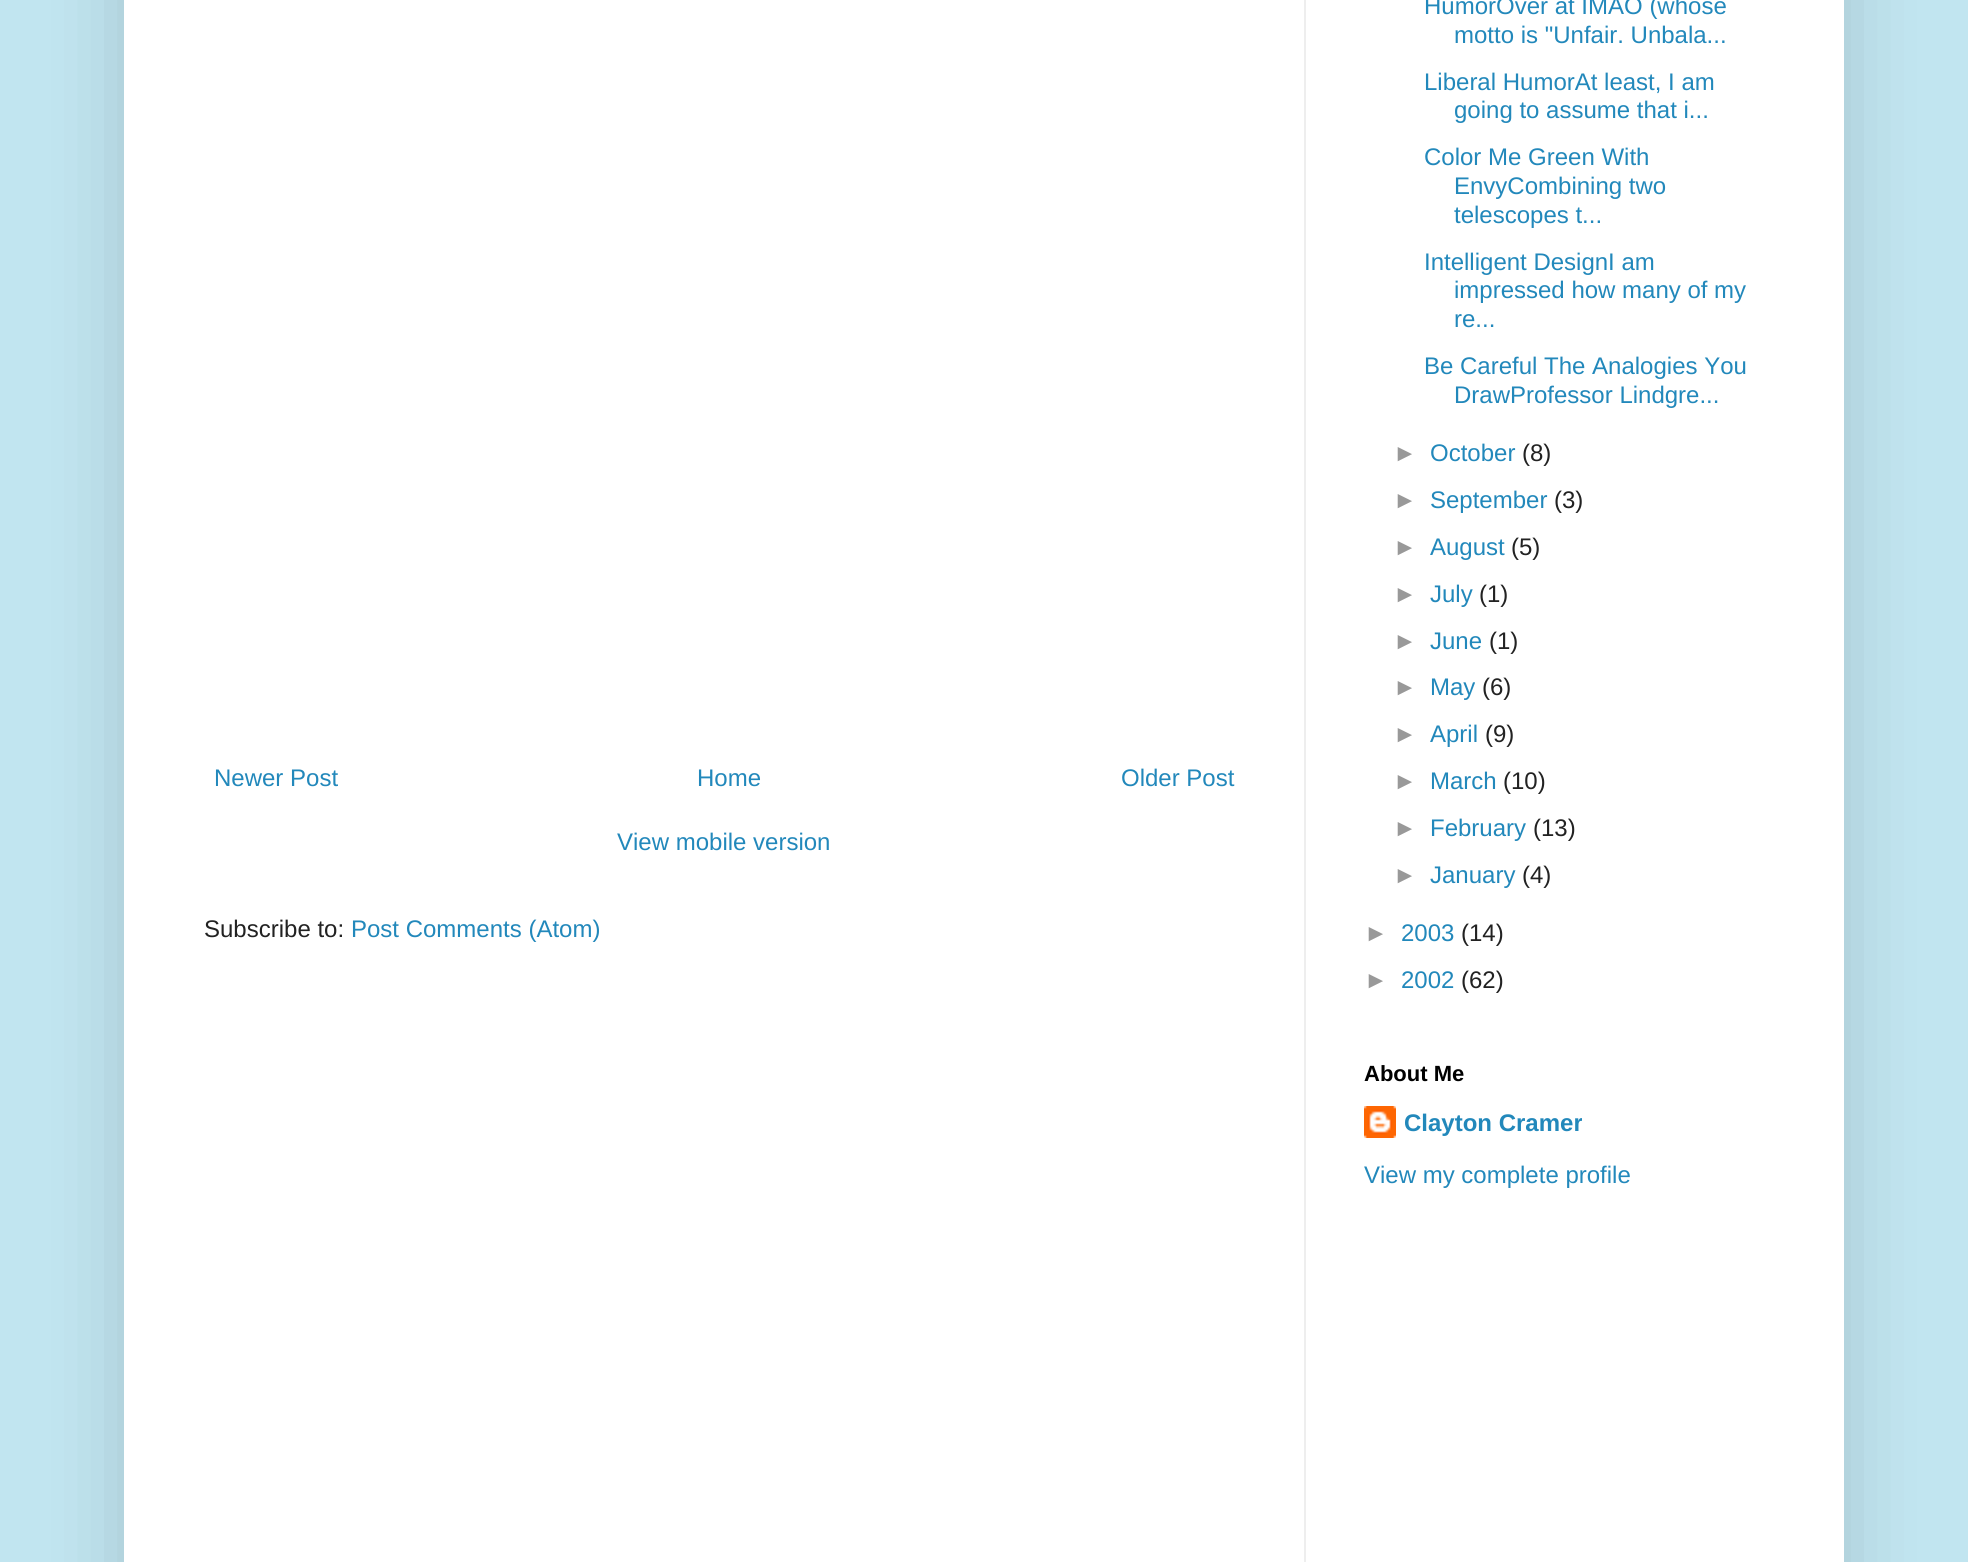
#include <cairo.h>
#include <math.h>
#include <stddef.h>

typedef struct { double x, y; const char *s; } line_t;

static void ink(cairo_t *ctx, unsigned color) {
    cairo_set_source_rgb(ctx, (color >> 16) / 255.0, (color >> 8 & 255) / 255.0, (color & 255) / 255.0);
}

static void round_path(cairo_t *ctx, double x, double y, double w, double h, double r) {
    cairo_new_sub_path(ctx);
    cairo_arc(ctx, x + w - r, y + h - r, r, 0, M_PI / 2);
    cairo_arc(ctx, x + r, y + h - r, r, M_PI / 2, M_PI);
    cairo_arc(ctx, x + r, y + r, r, M_PI, 1.5 * M_PI);
    cairo_arc(ctx, x + w - r, y + r, r, 1.5 * M_PI, 2 * M_PI);
    cairo_close_path(ctx);
}

static void blur_box(cairo_t *ctx, double x, double y, double w, double h, double r, double blur, double alpha) {
    cairo_push_group_with_content(ctx, CAIRO_CONTENT_ALPHA);
    cairo_set_operator(ctx, CAIRO_OPERATOR_SOURCE);
    for (int i = 15; i >= -15 && fmin(w, h) + blur * i / 3 > 0; i -= 2) {
        double e = blur * i / 6;
        cairo_set_source_rgba(ctx, 0, 0, 0, alpha * erfc((i - 1) / 8.5) / 2);
        round_path(ctx, x - e, y - e, w + 2 * e, h + 2 * e, fmax(0, fmin(r + e + blur * .6, fmin(w, h) / 2 + e)));
        cairo_fill(ctx);
    }
    cairo_pattern_t *soft = cairo_pop_group(ctx);
    cairo_mask(ctx, soft);
    cairo_pattern_destroy(soft);
}

static void paste(cairo_t *ctx, const char *path, double x, double y, double w, double h) {
    cairo_surface_t *image = cairo_image_surface_create_from_png(path);
    cairo_save(ctx);
    cairo_set_source_surface(ctx, image, x, y);
    cairo_rectangle(ctx, x, y, w, h);
    cairo_fill(ctx);
    cairo_restore(ctx);
    cairo_surface_destroy(image);
}

int main(void) {
    cairo_surface_t *surface = cairo_image_surface_create(CAIRO_FORMAT_RGB24, 1968, 1562);
    cairo_t *ctx = cairo_create(surface);
    cairo_font_options_t *options = cairo_font_options_create();
    cairo_font_options_set_hint_metrics(options, CAIRO_HINT_METRICS_OFF);
    cairo_font_options_set_hint_style(options, CAIRO_HINT_STYLE_NONE);
    cairo_set_font_options(ctx, options);
    cairo_set_miter_limit(ctx, 4);
    ink(ctx, 0xC1E5F0);
    cairo_paint(ctx);
    ink(ctx, 0x000000);
    blur_box(ctx, 124, -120, 1720, 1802, 0, 40, 0.15);
    ink(ctx, 0xFFFFFF);
    cairo_rectangle(ctx, 124, 0, 1720, 1562);
    cairo_fill(ctx);
    cairo_select_font_face(ctx, "Liberation Sans", CAIRO_FONT_SLANT_NORMAL, CAIRO_FONT_WEIGHT_NORMAL);
    cairo_set_font_size(ctx, 24);
    ink(ctx, 0x2288BB);
    {
        static const line_t items[] = {
            {214, 786, "Newer Post"},
            {697, 786, "Home"},
            {1121, 786, "Older Post"},
            {617, 850, "View mobile version"},
        };
        for (size_t i = 0; i < sizeof items / sizeof *items; i++) {
            cairo_move_to(ctx, items[i].x, items[i].y);
            cairo_show_text(ctx, items[i].s);
        }
    }
    ink(ctx, 0x222222);
    cairo_move_to(ctx, 204, 937);
    cairo_show_text(ctx, "Subscribe to:");
    ink(ctx, 0x2288BB);
    {
        static const line_t items[] = {
            {351, 937, "Post Comments (Atom)"},
            {1424, 14, "HumorOver at IMAO (whose"},
            {1454, 43, "motto is \"Unfair. Unbala..."},
            {1424, 90, "Liberal HumorAt least, I am"},
            {1454, 118, "going to assume that i..."},
            {1424, 165, "Color Me Green With"},
            {1454, 194, "EnvyCombining two"},
            {1454, 223, "telescopes t..."},
            {1424, 270, "Intelligent DesignI am"},
            {1454, 298, "impressed how many of my"},
            {1454, 327, "re..."},
            {1424, 374, "Be Careful The Analogies You"},
            {1454, 403, "DrawProfessor Lindgre..."},
        };
        for (size_t i = 0; i < sizeof items / sizeof *items; i++) {
            cairo_move_to(ctx, items[i].x, items[i].y);
            cairo_show_text(ctx, items[i].s);
        }
    }
    ink(ctx, 0x999999);
    cairo_move_to(ctx, 1393, 461);
    cairo_show_text(ctx, "►");
    ink(ctx, 0x2288BB);
    cairo_move_to(ctx, 1430, 461);
    cairo_show_text(ctx, "October");
    ink(ctx, 0x222222);
    cairo_move_to(ctx, 1522, 461);
    cairo_show_text(ctx, "(8)");
    ink(ctx, 0x999999);
    cairo_move_to(ctx, 1393, 508);
    cairo_show_text(ctx, "►");
    ink(ctx, 0x2288BB);
    cairo_move_to(ctx, 1430, 508);
    cairo_show_text(ctx, "September");
    ink(ctx, 0x222222);
    cairo_move_to(ctx, 1554, 508);
    cairo_show_text(ctx, "(3)");
    ink(ctx, 0x999999);
    cairo_move_to(ctx, 1393, 555);
    cairo_show_text(ctx, "►");
    ink(ctx, 0x2288BB);
    cairo_move_to(ctx, 1430, 555);
    cairo_show_text(ctx, "August");
    ink(ctx, 0x222222);
    cairo_move_to(ctx, 1511, 555);
    cairo_show_text(ctx, "(5)");
    ink(ctx, 0x999999);
    cairo_move_to(ctx, 1393, 602);
    cairo_show_text(ctx, "►");
    ink(ctx, 0x2288BB);
    cairo_move_to(ctx, 1430, 602);
    cairo_show_text(ctx, "July");
    ink(ctx, 0x222222);
    cairo_move_to(ctx, 1479, 602);
    cairo_show_text(ctx, "(1)");
    ink(ctx, 0x999999);
    cairo_move_to(ctx, 1393, 649);
    cairo_show_text(ctx, "►");
    ink(ctx, 0x2288BB);
    cairo_move_to(ctx, 1430, 649);
    cairo_show_text(ctx, "June");
    ink(ctx, 0x222222);
    cairo_move_to(ctx, 1489, 649);
    cairo_show_text(ctx, "(1)");
    ink(ctx, 0x999999);
    cairo_move_to(ctx, 1393, 695);
    cairo_show_text(ctx, "►");
    ink(ctx, 0x2288BB);
    cairo_move_to(ctx, 1430, 695);
    cairo_show_text(ctx, "May");
    ink(ctx, 0x222222);
    cairo_move_to(ctx, 1482, 695);
    cairo_show_text(ctx, "(6)");
    ink(ctx, 0x999999);
    cairo_move_to(ctx, 1393, 742);
    cairo_show_text(ctx, "►");
    ink(ctx, 0x2288BB);
    cairo_move_to(ctx, 1430, 742);
    cairo_show_text(ctx, "April");
    ink(ctx, 0x222222);
    cairo_move_to(ctx, 1485, 742);
    cairo_show_text(ctx, "(9)");
    ink(ctx, 0x999999);
    cairo_move_to(ctx, 1393, 789);
    cairo_show_text(ctx, "►");
    ink(ctx, 0x2288BB);
    cairo_move_to(ctx, 1430, 789);
    cairo_show_text(ctx, "March");
    ink(ctx, 0x222222);
    cairo_move_to(ctx, 1503, 789);
    cairo_show_text(ctx, "(10)");
    ink(ctx, 0x999999);
    cairo_move_to(ctx, 1393, 836);
    cairo_show_text(ctx, "►");
    ink(ctx, 0x2288BB);
    cairo_move_to(ctx, 1430, 836);
    cairo_show_text(ctx, "February");
    ink(ctx, 0x222222);
    cairo_move_to(ctx, 1533, 836);
    cairo_show_text(ctx, "(13)");
    ink(ctx, 0x999999);
    cairo_move_to(ctx, 1393, 883);
    cairo_show_text(ctx, "►");
    ink(ctx, 0x2288BB);
    cairo_move_to(ctx, 1430, 883);
    cairo_show_text(ctx, "January");
    ink(ctx, 0x222222);
    cairo_move_to(ctx, 1522, 883);
    cairo_show_text(ctx, "(4)");
    ink(ctx, 0x999999);
    cairo_move_to(ctx, 1364, 941);
    cairo_show_text(ctx, "►");
    ink(ctx, 0x2288BB);
    cairo_move_to(ctx, 1401, 941);
    cairo_show_text(ctx, "2003");
    ink(ctx, 0x222222);
    cairo_move_to(ctx, 1461, 941);
    cairo_show_text(ctx, "(14)");
    ink(ctx, 0x999999);
    cairo_move_to(ctx, 1364, 988);
    cairo_show_text(ctx, "►");
    ink(ctx, 0x2288BB);
    cairo_move_to(ctx, 1401, 988);
    cairo_show_text(ctx, "2002");
    ink(ctx, 0x222222);
    cairo_move_to(ctx, 1461, 988);
    cairo_show_text(ctx, "(62)");
    cairo_select_font_face(ctx, "Liberation Sans", CAIRO_FONT_SLANT_NORMAL, CAIRO_FONT_WEIGHT_BOLD);
    cairo_set_font_size(ctx, 22);
    ink(ctx, 0x000000);
    cairo_move_to(ctx, 1364, 1081);
    cairo_show_text(ctx, "About Me");
    paste(ctx, "media/1.png", 1364, 1106, 32, 32);
    cairo_set_font_size(ctx, 24);
    ink(ctx, 0x2288BB);
    cairo_move_to(ctx, 1404, 1131);
    cairo_show_text(ctx, "Clayton Cramer");
    cairo_select_font_face(ctx, "Liberation Sans", CAIRO_FONT_SLANT_NORMAL, CAIRO_FONT_WEIGHT_NORMAL);
    cairo_move_to(ctx, 1364, 1183);
    cairo_show_text(ctx, "View my complete profile");
    ink(ctx, 0xEEEEEE);
    cairo_rectangle(ctx, 1304, 0, 2, 1562);
    cairo_fill(ctx);
    cairo_surface_write_to_png(surface, "image.png");
    cairo_font_options_destroy(options);
    cairo_destroy(ctx);
    cairo_surface_destroy(surface);
    return 0;
}
